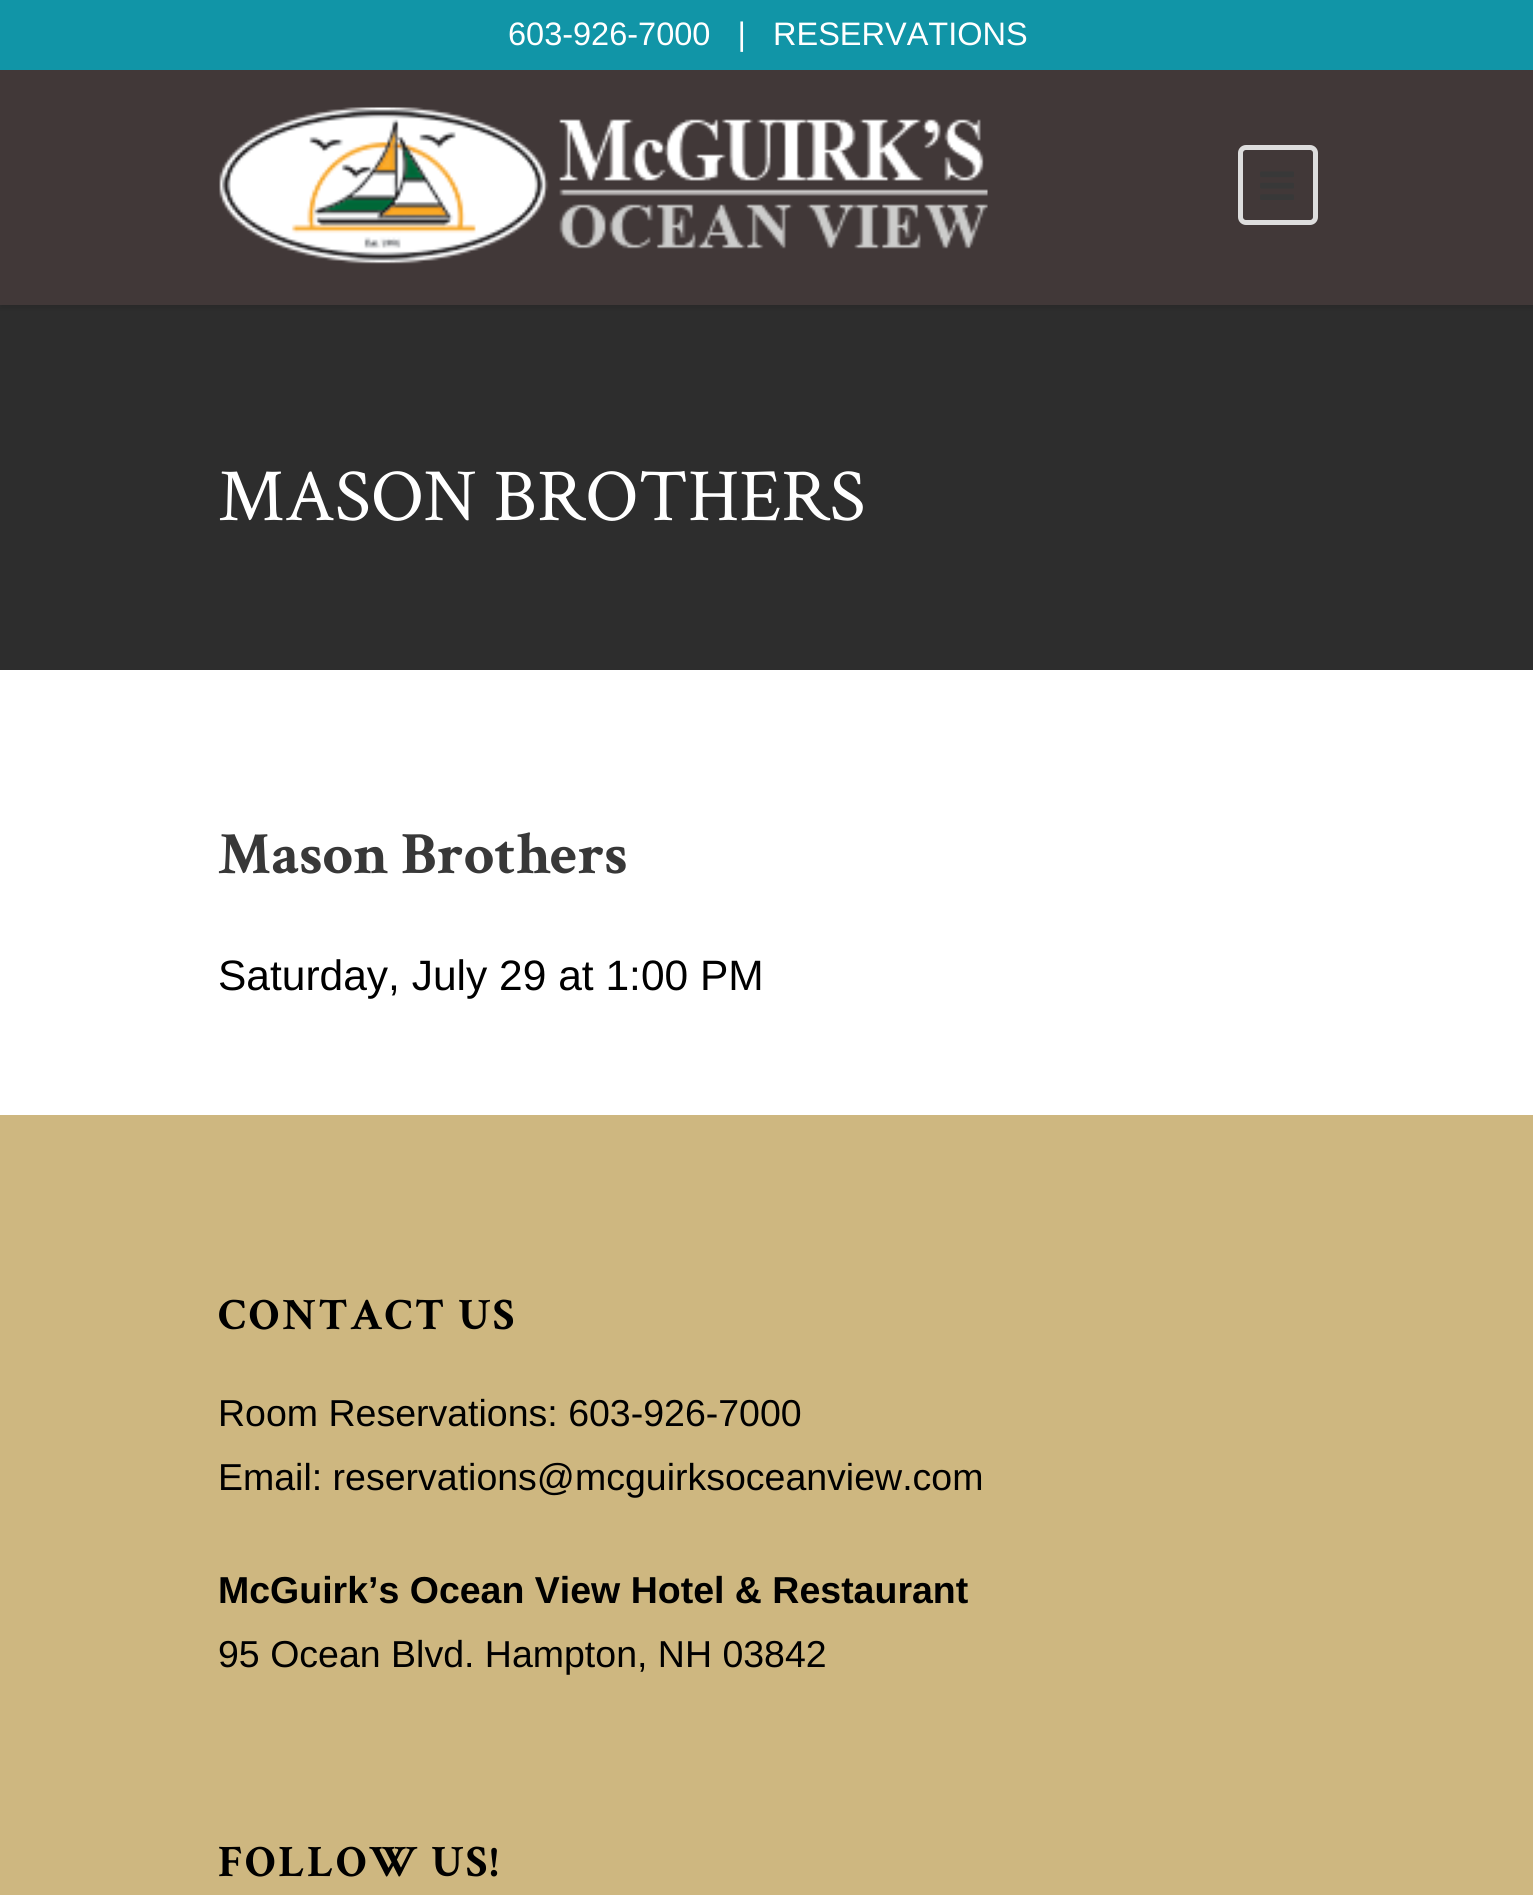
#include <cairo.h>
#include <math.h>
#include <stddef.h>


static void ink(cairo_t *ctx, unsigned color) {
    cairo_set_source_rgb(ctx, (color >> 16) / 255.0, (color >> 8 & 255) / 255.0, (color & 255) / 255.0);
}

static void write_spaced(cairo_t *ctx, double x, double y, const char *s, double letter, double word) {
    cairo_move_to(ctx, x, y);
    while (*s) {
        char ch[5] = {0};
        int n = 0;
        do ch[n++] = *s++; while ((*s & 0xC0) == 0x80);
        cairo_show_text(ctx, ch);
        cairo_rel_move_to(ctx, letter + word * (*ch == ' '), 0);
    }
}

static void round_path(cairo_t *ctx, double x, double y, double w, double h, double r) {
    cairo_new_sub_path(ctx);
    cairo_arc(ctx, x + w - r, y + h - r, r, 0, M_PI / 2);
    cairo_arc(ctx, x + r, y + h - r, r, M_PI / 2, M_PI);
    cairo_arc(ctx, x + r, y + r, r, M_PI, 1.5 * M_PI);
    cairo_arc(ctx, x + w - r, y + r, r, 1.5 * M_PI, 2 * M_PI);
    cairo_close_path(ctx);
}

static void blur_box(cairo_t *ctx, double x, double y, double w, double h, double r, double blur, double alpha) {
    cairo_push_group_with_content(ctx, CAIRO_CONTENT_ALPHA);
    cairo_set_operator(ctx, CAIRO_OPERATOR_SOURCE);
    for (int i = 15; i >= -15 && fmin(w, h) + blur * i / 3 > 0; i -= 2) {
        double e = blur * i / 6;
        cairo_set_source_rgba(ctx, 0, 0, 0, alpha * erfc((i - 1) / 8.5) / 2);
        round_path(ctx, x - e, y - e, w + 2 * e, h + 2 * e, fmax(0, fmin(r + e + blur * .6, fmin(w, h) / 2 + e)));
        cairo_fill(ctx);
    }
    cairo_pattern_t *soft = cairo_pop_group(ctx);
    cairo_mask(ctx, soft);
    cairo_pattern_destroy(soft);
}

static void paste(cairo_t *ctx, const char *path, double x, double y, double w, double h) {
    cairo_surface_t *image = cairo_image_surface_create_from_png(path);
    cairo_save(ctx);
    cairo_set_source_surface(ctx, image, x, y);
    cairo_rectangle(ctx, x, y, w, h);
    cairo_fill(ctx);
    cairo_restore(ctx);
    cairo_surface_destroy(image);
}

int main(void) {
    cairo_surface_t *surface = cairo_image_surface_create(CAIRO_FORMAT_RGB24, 1533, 1895);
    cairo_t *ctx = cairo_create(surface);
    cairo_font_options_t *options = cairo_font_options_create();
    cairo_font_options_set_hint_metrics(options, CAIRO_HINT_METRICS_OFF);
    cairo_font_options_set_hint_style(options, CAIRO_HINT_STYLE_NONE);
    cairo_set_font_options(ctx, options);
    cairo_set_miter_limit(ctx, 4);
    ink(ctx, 0xFFFFFF);
    cairo_paint(ctx);
    ink(ctx, 0x2D2D2D);
    cairo_rectangle(ctx, 0, 305, 1533, 365);
    cairo_fill(ctx);
    ink(ctx, 0x000000);
    blur_box(ctx, 0, 73, 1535, 235, 0, 2.5, 0.1);
    ink(ctx, 0x1195A7);
    cairo_rectangle(ctx, 0, 0, 1533, 70);
    cairo_fill(ctx);
    cairo_select_font_face(ctx, "Liberation Sans", CAIRO_FONT_SLANT_NORMAL, CAIRO_FONT_WEIGHT_NORMAL);
    cairo_set_font_size(ctx, 32.5);
    ink(ctx, 0xFFFFFF);
    cairo_move_to(ctx, 508, 45);
    cairo_show_text(ctx, "603-926-7000   |");
    cairo_move_to(ctx, 773, 45);
    cairo_show_text(ctx, "RESERVATIONS");
    ink(ctx, 0x413838);
    cairo_rectangle(ctx, 0, 70, 1533, 235);
    cairo_fill(ctx);
    paste(ctx, "media/1.png", 219, 107, 769, 157);
    round_path(ctx, 1240.5, 147.5, 75, 75, 5.5);
    ink(ctx, 0xDDDDDD);
    cairo_set_line_width(ctx, 5);
    cairo_stroke(ctx);
    paste(ctx, "media/2.png", 1260, 171, 34, 29);
    cairo_select_font_face(ctx, "Crimson Text", CAIRO_FONT_SLANT_NORMAL, CAIRO_FONT_WEIGHT_NORMAL);
    cairo_set_font_size(ctx, 75);
    ink(ctx, 0xFFFFFF);
    cairo_move_to(ctx, 218, 520);
    cairo_show_text(ctx, "MASON BROTHERS");
    cairo_select_font_face(ctx, "Crimson Text", CAIRO_FONT_SLANT_NORMAL, CAIRO_FONT_WEIGHT_BOLD);
    cairo_set_font_size(ctx, 60);
    ink(ctx, 0x383838);
    cairo_move_to(ctx, 218, 873);
    cairo_show_text(ctx, "Mason Brothers");
    cairo_select_font_face(ctx, "Liberation Sans", CAIRO_FONT_SLANT_NORMAL, CAIRO_FONT_WEIGHT_NORMAL);
    cairo_set_font_size(ctx, 42.5);
    ink(ctx, 0x000000);
    cairo_move_to(ctx, 218, 990);
    cairo_show_text(ctx, "Saturday, July 29 at 1:00 PM");
    ink(ctx, 0xCEB780);
    cairo_rectangle(ctx, 0, 1115, 1533, 780);
    cairo_fill(ctx);
    cairo_select_font_face(ctx, "Crimson Text", CAIRO_FONT_SLANT_NORMAL, CAIRO_FONT_WEIGHT_BOLD);
    cairo_set_font_size(ctx, 45);
    ink(ctx, 0x000000);
    write_spaced(ctx, 218, 1329, "CONTACT US", 2.5, 0);
    cairo_select_font_face(ctx, "Liberation Sans", CAIRO_FONT_SLANT_NORMAL, CAIRO_FONT_WEIGHT_NORMAL);
    cairo_set_font_size(ctx, 37.5);
    cairo_move_to(ctx, 218, 1426);
    cairo_show_text(ctx, "Room Reservations: 603-926-7000");
    cairo_move_to(ctx, 218, 1490);
    cairo_show_text(ctx, "Email: reservations@mcguirksoceanview.com");
    cairo_select_font_face(ctx, "Liberation Sans", CAIRO_FONT_SLANT_NORMAL, CAIRO_FONT_WEIGHT_BOLD);
    cairo_move_to(ctx, 218, 1603);
    cairo_show_text(ctx, "McGuirk’s Ocean View Hotel & Restaurant");
    cairo_select_font_face(ctx, "Liberation Sans", CAIRO_FONT_SLANT_NORMAL, CAIRO_FONT_WEIGHT_NORMAL);
    cairo_move_to(ctx, 218, 1667);
    cairo_show_text(ctx, "95 Ocean Blvd. Hampton, NH 03842");
    cairo_select_font_face(ctx, "Crimson Text", CAIRO_FONT_SLANT_NORMAL, CAIRO_FONT_WEIGHT_BOLD);
    cairo_set_font_size(ctx, 45);
    write_spaced(ctx, 218, 1876, "FOLLOW US!", 2.5, 0);
    cairo_surface_write_to_png(surface, "image.png");
    cairo_font_options_destroy(options);
    cairo_destroy(ctx);
    cairo_surface_destroy(surface);
    return 0;
}
